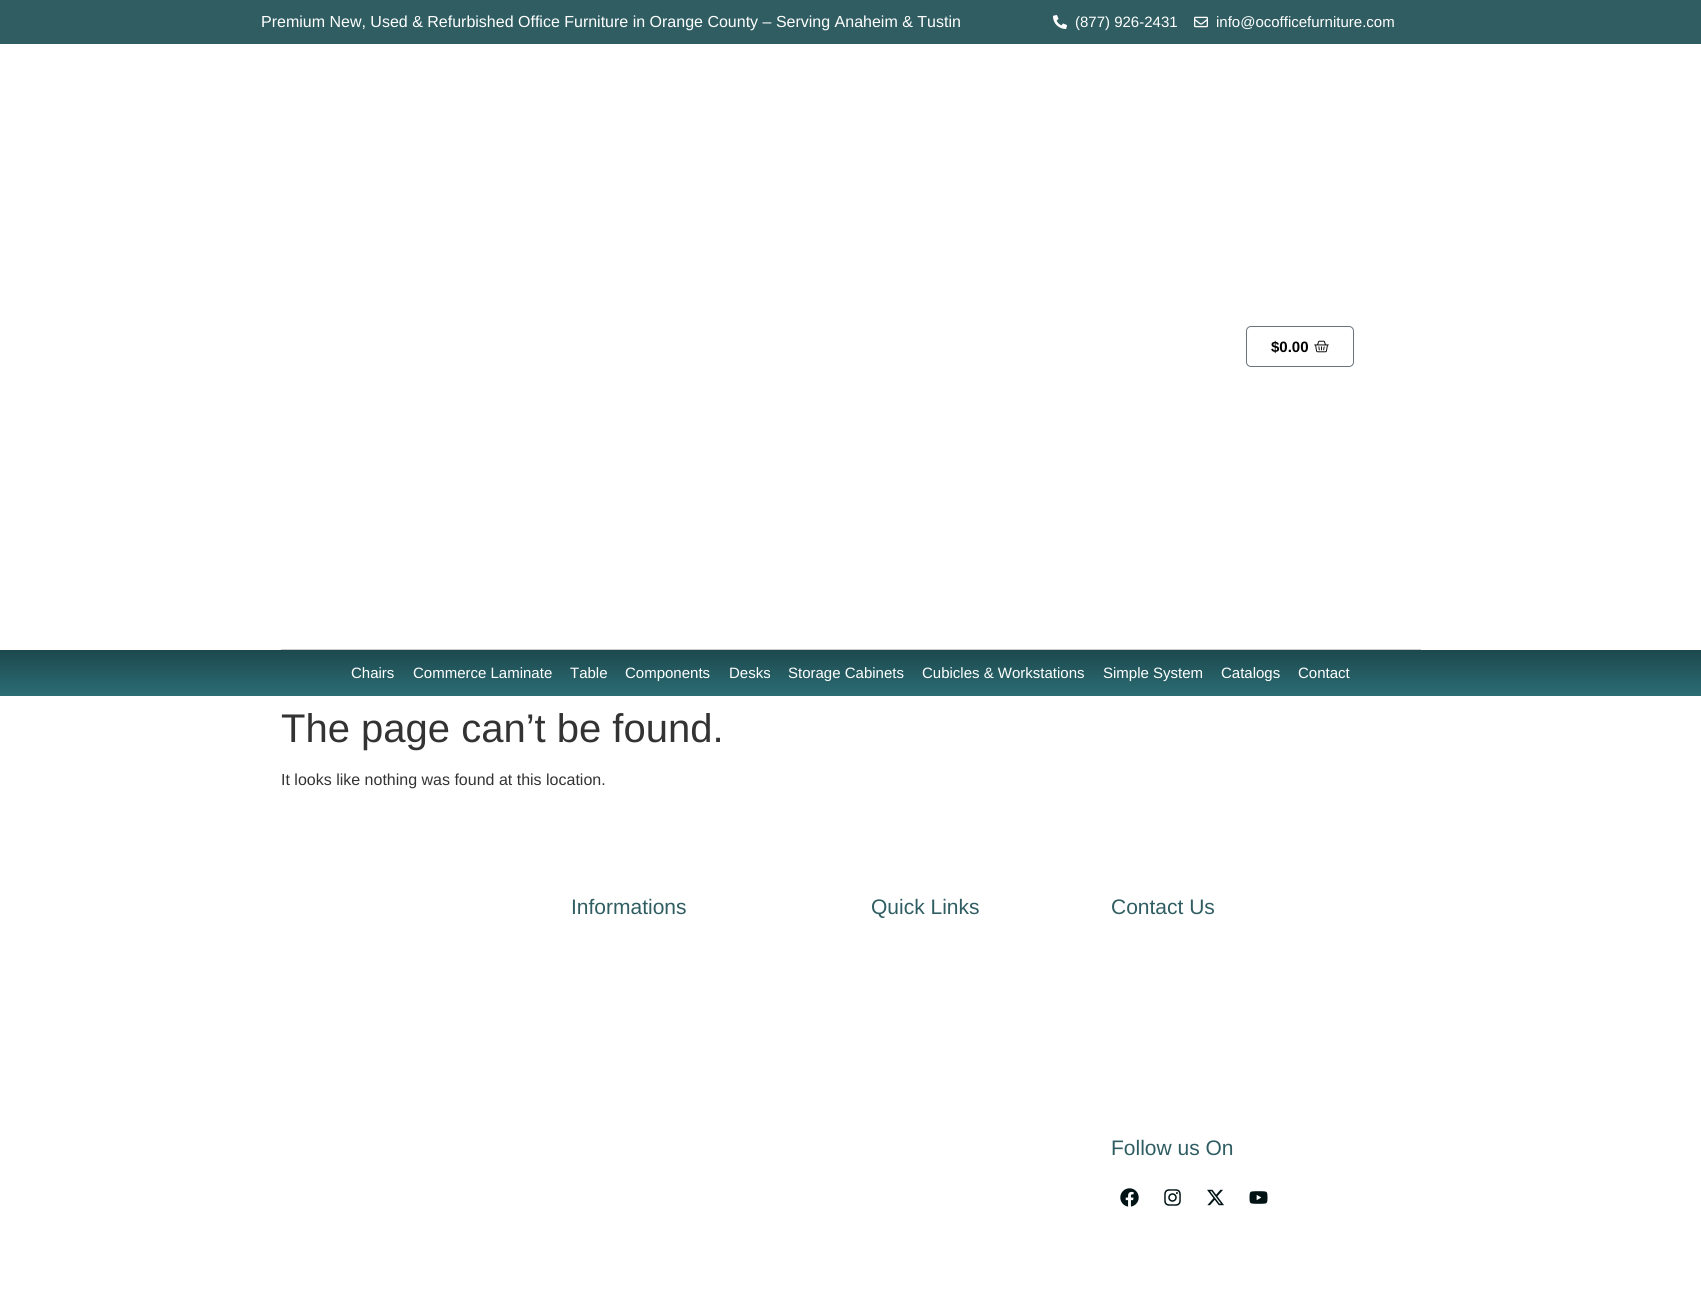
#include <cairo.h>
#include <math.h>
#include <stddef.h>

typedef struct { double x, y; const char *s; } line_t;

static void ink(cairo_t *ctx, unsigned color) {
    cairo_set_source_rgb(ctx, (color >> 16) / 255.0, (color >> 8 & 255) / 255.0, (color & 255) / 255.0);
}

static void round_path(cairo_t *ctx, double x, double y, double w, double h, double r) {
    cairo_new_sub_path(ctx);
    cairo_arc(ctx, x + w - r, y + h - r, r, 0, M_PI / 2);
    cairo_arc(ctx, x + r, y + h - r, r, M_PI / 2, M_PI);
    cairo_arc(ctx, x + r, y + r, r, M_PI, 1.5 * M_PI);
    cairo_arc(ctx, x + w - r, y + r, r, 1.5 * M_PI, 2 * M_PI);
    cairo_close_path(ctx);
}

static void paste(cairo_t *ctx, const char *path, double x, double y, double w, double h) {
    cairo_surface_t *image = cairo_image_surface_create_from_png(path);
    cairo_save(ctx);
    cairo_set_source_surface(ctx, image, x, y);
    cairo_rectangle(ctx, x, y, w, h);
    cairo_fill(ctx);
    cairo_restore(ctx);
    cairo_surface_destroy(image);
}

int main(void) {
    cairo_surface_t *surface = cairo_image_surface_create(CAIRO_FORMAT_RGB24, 1701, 1314);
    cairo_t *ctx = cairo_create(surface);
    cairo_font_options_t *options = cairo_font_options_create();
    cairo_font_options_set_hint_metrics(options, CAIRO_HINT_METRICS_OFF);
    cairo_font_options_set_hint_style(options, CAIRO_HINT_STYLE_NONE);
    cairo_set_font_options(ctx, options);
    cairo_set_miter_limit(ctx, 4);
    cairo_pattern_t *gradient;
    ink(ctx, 0xFFFFFF);
    cairo_paint(ctx);
    ink(ctx, 0x2F5D62);
    cairo_rectangle(ctx, 0, 0, 1701, 44);
    cairo_fill(ctx);
    cairo_select_font_face(ctx, "Liberation Sans", CAIRO_FONT_SLANT_NORMAL, CAIRO_FONT_WEIGHT_NORMAL);
    cairo_set_font_size(ctx, 16);
    ink(ctx, 0xFFFFFF);
    cairo_move_to(ctx, 261, 27);
    cairo_show_text(ctx, "Premium New, Used & Refurbished Office Furniture in Orange County – Serving Anaheim & Tustin");
    paste(ctx, "media/1.png", 1053, 15, 14, 14);
    cairo_set_font_size(ctx, 15);
    cairo_move_to(ctx, 1075, 27);
    cairo_show_text(ctx, "(877) 926-2431");
    paste(ctx, "media/2.png", 1194, 16, 14, 12);
    cairo_move_to(ctx, 1216, 27);
    cairo_show_text(ctx, "info@ocofficefurniture.com");
    ink(ctx, 0xCCCCCC);
    cairo_rectangle(ctx, 281, 649, 1140, 1);
    cairo_fill(ctx);
    round_path(ctx, 1246.5, 326.5, 107, 40, 4.5);
    ink(ctx, 0x69727D);
    cairo_set_line_width(ctx, 1);
    cairo_stroke(ctx);
    cairo_select_font_face(ctx, "Liberation Sans", CAIRO_FONT_SLANT_NORMAL, CAIRO_FONT_WEIGHT_BOLD);
    ink(ctx, 0x000000);
    cairo_move_to(ctx, 1271, 352);
    cairo_show_text(ctx, "$0.00");
    paste(ctx, "media/3.png", 1314, 340, 15, 13);
    gradient = cairo_pattern_create_linear(851, 650, 851, 696);
    cairo_pattern_add_color_stop_rgba(gradient, 0, 0.11, 0.286, 0.306, 1);
    cairo_pattern_add_color_stop_rgba(gradient, 1, 0.173, 0.427, 0.455, 1);
    cairo_set_source(ctx, gradient);
    cairo_pattern_destroy(gradient);
    cairo_rectangle(ctx, 0, 650, 1701, 46);
    cairo_fill(ctx);
    cairo_select_font_face(ctx, "Liberation Sans", CAIRO_FONT_SLANT_NORMAL, CAIRO_FONT_WEIGHT_NORMAL);
    ink(ctx, 0xFFFFFF);
    {
        static const line_t items[] = {
            {351, 678, "Chairs"},
            {413, 678, "Commerce Laminate"},
            {570, 678, "Table"},
            {625, 678, "Components"},
            {729, 678, "Desks"},
            {788, 678, "Storage Cabinets"},
            {922, 678, "Cubicles & Workstations"},
            {1103, 678, "Simple System"},
            {1221, 678, "Catalogs"},
            {1298, 678, "Contact"},
        };
        for (size_t i = 0; i < sizeof items / sizeof *items; i++) {
            cairo_move_to(ctx, items[i].x, items[i].y);
            cairo_show_text(ctx, items[i].s);
        }
    }
    cairo_set_font_size(ctx, 40);
    ink(ctx, 0x333333);
    cairo_move_to(ctx, 281, 742);
    cairo_show_text(ctx, "The page can’t be found.");
    cairo_set_font_size(ctx, 16);
    cairo_move_to(ctx, 281, 785);
    cairo_show_text(ctx, "It looks like nothing was found at this location.");
    cairo_set_font_size(ctx, 21);
    ink(ctx, 0x2F5D62);
    {
        static const line_t items[] = {
            {571, 914, "Informations"},
            {871, 914, "Quick Links"},
            {1111, 914, "Contact Us"},
            {1111, 1155, "Follow us On"},
        };
        for (size_t i = 0; i < sizeof items / sizeof *items; i++) {
            cairo_move_to(ctx, items[i].x, items[i].y);
            cairo_show_text(ctx, items[i].s);
        }
    }
    paste(ctx, "media/4.png", 1120, 1188, 19, 19);
    paste(ctx, "media/5.png", 1164, 1189, 17, 17);
    paste(ctx, "media/6.png", 1207, 1189, 17, 17);
    paste(ctx, "media/7.png", 1249, 1191, 19, 13);
    cairo_surface_write_to_png(surface, "image.png");
    cairo_font_options_destroy(options);
    cairo_destroy(ctx);
    cairo_surface_destroy(surface);
    return 0;
}
